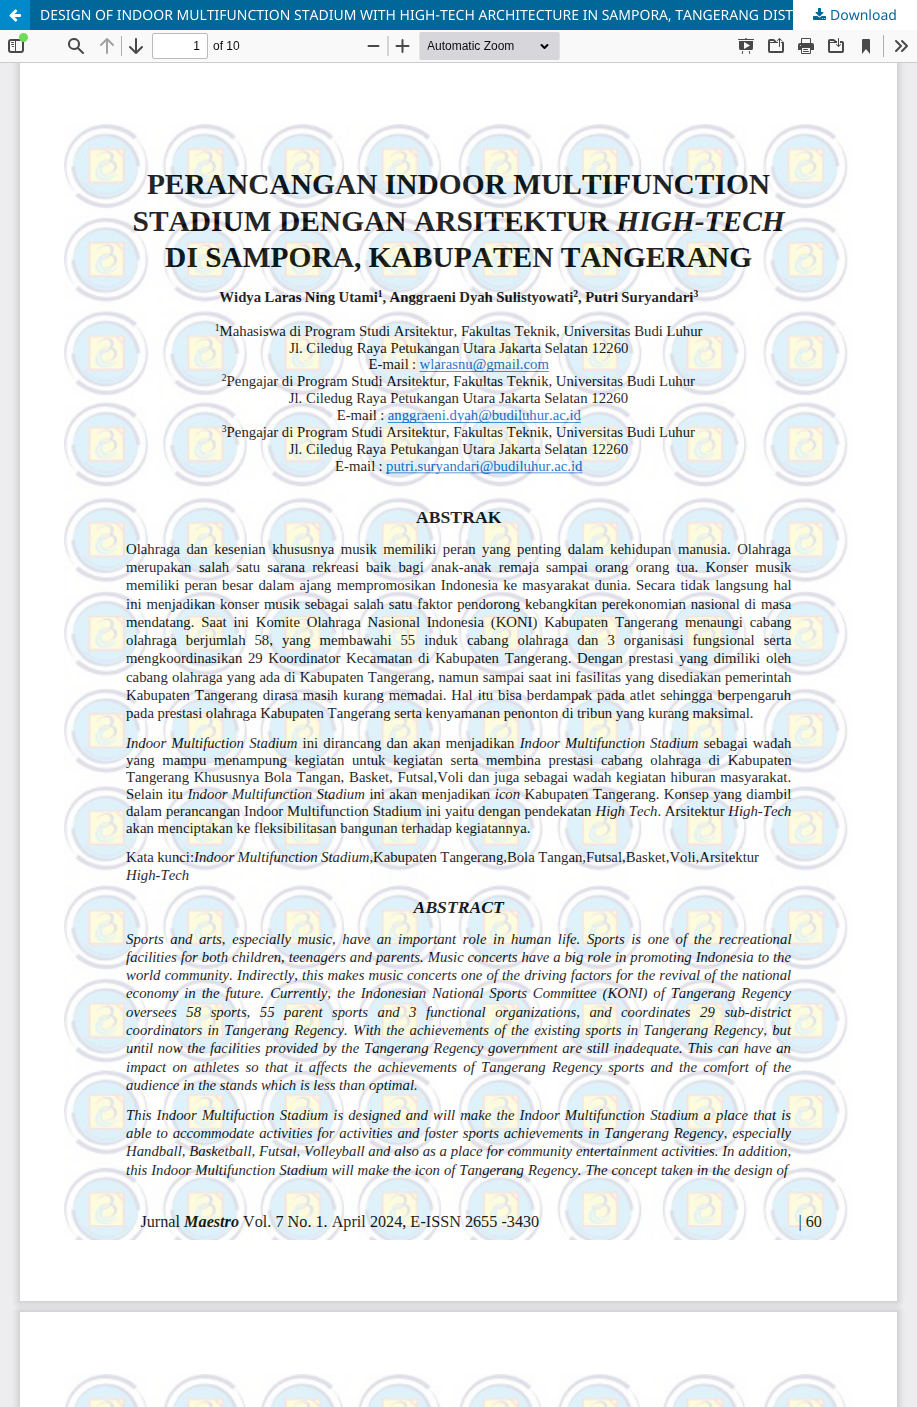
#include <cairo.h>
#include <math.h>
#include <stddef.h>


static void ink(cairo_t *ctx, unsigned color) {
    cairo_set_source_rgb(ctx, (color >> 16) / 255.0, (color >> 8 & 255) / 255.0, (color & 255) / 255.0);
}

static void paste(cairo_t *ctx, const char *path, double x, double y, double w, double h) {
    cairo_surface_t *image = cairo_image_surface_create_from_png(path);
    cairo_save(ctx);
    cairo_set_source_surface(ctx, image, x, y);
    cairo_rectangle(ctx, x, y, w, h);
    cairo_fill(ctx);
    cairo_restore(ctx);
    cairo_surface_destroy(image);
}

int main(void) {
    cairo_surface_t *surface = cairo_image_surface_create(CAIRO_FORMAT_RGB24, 917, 1407);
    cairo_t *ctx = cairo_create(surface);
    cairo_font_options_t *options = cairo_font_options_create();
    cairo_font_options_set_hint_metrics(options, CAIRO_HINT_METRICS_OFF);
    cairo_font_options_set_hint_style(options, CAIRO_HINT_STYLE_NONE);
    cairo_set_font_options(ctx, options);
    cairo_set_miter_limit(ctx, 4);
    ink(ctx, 0xFFFFFF);
    cairo_paint(ctx);
    ink(ctx, 0x006798);
    cairo_rectangle(ctx, 30, 0, 763, 30);
    cairo_fill(ctx);
    ink(ctx, 0x008ACB);
    cairo_rectangle(ctx, 0, 0, 30, 30);
    cairo_fill(ctx);
    paste(ctx, "media/1.png", 9, 9, 12, 13);
    cairo_select_font_face(ctx, "Noto Sans", CAIRO_FONT_SLANT_NORMAL, CAIRO_FONT_WEIGHT_NORMAL);
    cairo_set_font_size(ctx, 14);
    ink(ctx, 0xFFFFFF);
    cairo_move_to(ctx, 40, 20);
    cairo_show_text(ctx, "DESIGN OF INDOOR MULTIFUNCTION STADIUM WITH HIGH-TECH ARCHITECTURE IN SAMPORA, TANGERANG DIST");
    paste(ctx, "media/2.png", 813, 8, 13, 12);
    ink(ctx, 0x006798);
    cairo_move_to(ctx, 830, 20);
    cairo_show_text(ctx, "Download");
    paste(ctx, "media/3.png", 0, 30, 917, 1377);
    cairo_surface_write_to_png(surface, "image.png");
    cairo_font_options_destroy(options);
    cairo_destroy(ctx);
    cairo_surface_destroy(surface);
    return 0;
}
